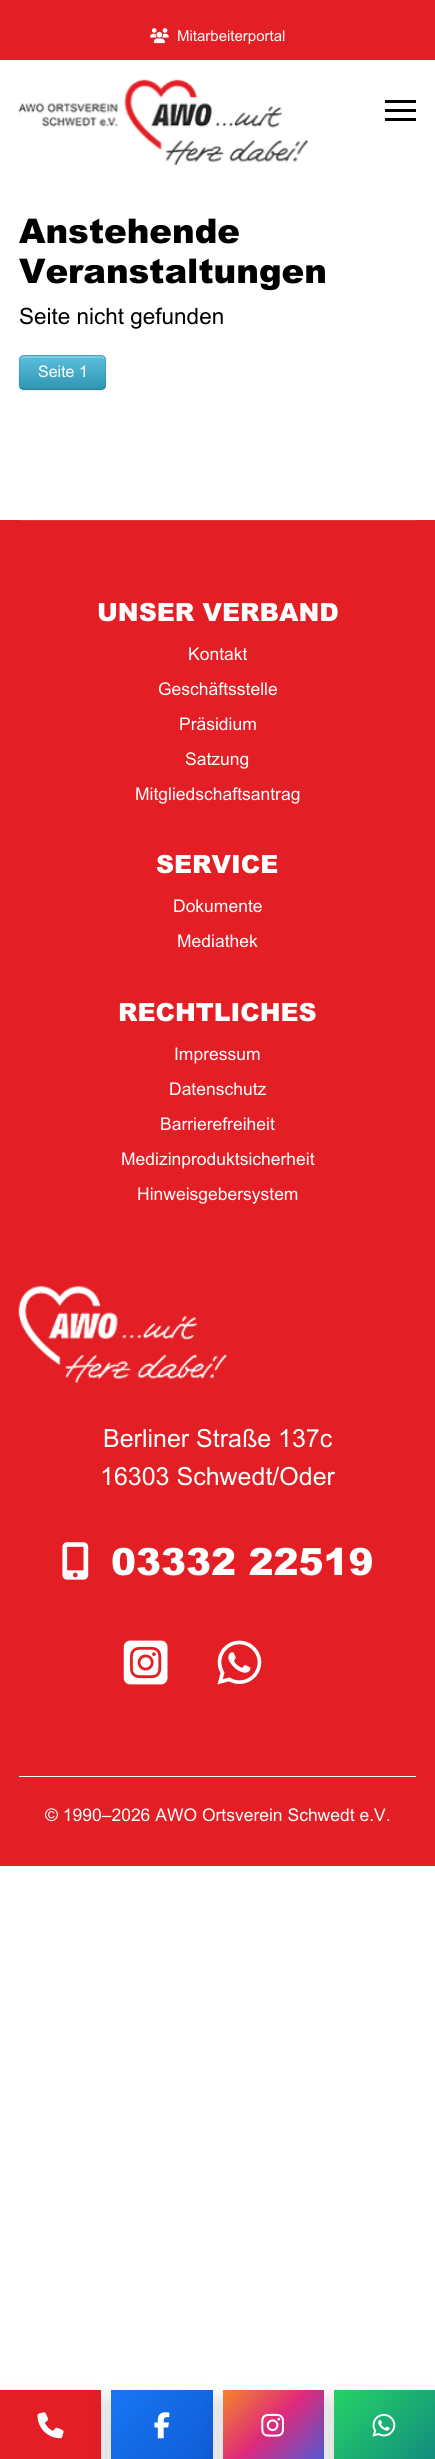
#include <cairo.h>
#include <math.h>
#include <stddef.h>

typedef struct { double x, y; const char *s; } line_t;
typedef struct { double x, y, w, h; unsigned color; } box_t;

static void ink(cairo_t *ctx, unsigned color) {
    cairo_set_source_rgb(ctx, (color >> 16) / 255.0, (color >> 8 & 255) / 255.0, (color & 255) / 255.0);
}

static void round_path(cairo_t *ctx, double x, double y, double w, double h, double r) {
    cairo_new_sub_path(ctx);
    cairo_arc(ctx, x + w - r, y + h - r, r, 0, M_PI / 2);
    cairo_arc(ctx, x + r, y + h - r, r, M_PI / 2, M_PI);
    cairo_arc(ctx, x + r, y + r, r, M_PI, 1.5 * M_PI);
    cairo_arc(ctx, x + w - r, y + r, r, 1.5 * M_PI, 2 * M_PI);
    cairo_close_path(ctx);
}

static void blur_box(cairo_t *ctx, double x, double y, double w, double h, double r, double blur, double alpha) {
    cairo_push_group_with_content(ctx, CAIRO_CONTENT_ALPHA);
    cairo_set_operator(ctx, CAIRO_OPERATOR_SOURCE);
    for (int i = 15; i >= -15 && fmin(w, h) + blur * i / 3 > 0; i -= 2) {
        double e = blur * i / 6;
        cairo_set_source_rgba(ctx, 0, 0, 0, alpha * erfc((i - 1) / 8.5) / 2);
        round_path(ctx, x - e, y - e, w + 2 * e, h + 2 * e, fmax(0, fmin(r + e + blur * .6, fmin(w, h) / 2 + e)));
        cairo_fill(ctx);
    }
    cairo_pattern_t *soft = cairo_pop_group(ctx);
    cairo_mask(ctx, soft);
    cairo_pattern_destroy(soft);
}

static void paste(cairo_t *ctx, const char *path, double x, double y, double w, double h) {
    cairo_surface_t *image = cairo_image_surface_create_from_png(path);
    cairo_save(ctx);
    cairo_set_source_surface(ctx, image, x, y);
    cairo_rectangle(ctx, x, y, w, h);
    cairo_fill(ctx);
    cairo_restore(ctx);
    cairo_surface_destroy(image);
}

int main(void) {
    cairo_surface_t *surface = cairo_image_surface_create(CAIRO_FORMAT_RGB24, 435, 2459);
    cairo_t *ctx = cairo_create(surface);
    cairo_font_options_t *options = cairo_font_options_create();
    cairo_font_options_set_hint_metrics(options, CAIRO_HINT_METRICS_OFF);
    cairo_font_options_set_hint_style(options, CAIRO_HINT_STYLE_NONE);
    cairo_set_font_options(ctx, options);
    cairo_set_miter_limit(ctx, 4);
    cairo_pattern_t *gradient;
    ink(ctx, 0xFFFFFF);
    cairo_paint(ctx);
    ink(ctx, 0xE31E24);
    cairo_rectangle(ctx, 0, 0, 435, 60);
    cairo_fill(ctx);
    paste(ctx, "media/1.png", 150, 28, 19, 16);
    cairo_select_font_face(ctx, "Arial", CAIRO_FONT_SLANT_NORMAL, CAIRO_FONT_WEIGHT_NORMAL);
    cairo_set_font_size(ctx, 15);
    ink(ctx, 0xFFFFFF);
    cairo_move_to(ctx, 177, 41);
    cairo_show_text(ctx, "Mitarbeiterportal");
    paste(ctx, "media/2.png", 18, 79, 290, 87);
    {
        static const box_t items[] = {
            {385, 100, 31, 3, 0x000000},
            {385, 109, 31, 3, 0x000000},
            {385, 118, 31, 3, 0x000000},
        };
        for (size_t i = 0; i < sizeof items / sizeof *items; i++) {
            ink(ctx, items[i].color);
            cairo_rectangle(ctx, items[i].x, items[i].y, items[i].w, items[i].h);
            cairo_fill(ctx);
        }
    }
    cairo_select_font_face(ctx, "Arial Black", CAIRO_FONT_SLANT_NORMAL, CAIRO_FONT_WEIGHT_NORMAL);
    cairo_set_font_size(ctx, 34);
    cairo_move_to(ctx, 19, 243);
    cairo_show_text(ctx, "Anstehende");
    cairo_move_to(ctx, 19, 283);
    cairo_show_text(ctx, "Veranstaltungen");
    cairo_select_font_face(ctx, "Arial", CAIRO_FONT_SLANT_NORMAL, CAIRO_FONT_WEIGHT_NORMAL);
    cairo_set_font_size(ctx, 22.5);
    cairo_move_to(ctx, 19, 324);
    cairo_show_text(ctx, "Seite nicht gefunden");
    ink(ctx, 0x000000);
    blur_box(ctx, 19, 356, 87, 35, 5, 1, 0.05);
    ink(ctx, 0x49AFCD);
    round_path(ctx, 19, 355, 87, 35, 5);
    cairo_fill(ctx);
    cairo_save(ctx);
    round_path(ctx, 19, 355, 87, 35, 5);
    cairo_clip(ctx);
    gradient = cairo_pattern_create_linear(63, 356, 63, 389);
    cairo_pattern_add_color_stop_rgba(gradient, 0, 0.357, 0.753, 0.871, 1);
    cairo_pattern_add_color_stop_rgba(gradient, 1, 0.184, 0.588, 0.706, 1);
    cairo_set_source(ctx, gradient);
    cairo_pattern_destroy(gradient);
    cairo_rectangle(ctx, 19, 356, 87, 33);
    cairo_fill(ctx);
    cairo_restore(ctx);
    cairo_set_source_rgba(ctx, 1, 1, 1, 0.2);
    cairo_new_path(ctx);
    cairo_move_to(ctx, 24, 358);
    cairo_line_to(ctx, 101, 358);
    cairo_curve_to(ctx, 103, 358, 105, 359, 105, 361);
    cairo_curve_to(ctx, 105, 353, 93, 356, 88, 356);
    cairo_line_to(ctx, 37, 356);
    cairo_curve_to(ctx, 32, 356, 20, 353, 20, 361);
    cairo_curve_to(ctx, 20, 359, 22, 358, 24, 358);
    cairo_close_path(ctx);
    cairo_fill(ctx);
    cairo_new_path(ctx);
    cairo_move_to(ctx, 104.5, 388);
    cairo_line_to(ctx, 101.5, 389.5);
    cairo_line_to(ctx, 23.5, 389.5);
    cairo_line_to(ctx, 20.5, 388);
    cairo_set_source_rgba(ctx, 0, 0, 0, 0.25);
    cairo_set_line_width(ctx, 1.2);
    cairo_stroke(ctx);
    cairo_new_path(ctx);
    cairo_move_to(ctx, 20.5, 388);
    cairo_curve_to(ctx, 18, 385.5, 19.5, 375.5, 19.5, 372.5);
    cairo_curve_to(ctx, 19.5, 353.5, 17, 355.5, 36.5, 355.5);
    cairo_line_to(ctx, 88.5, 355.5);
    cairo_curve_to(ctx, 108, 355.5, 105.5, 353.5, 105.5, 372.5);
    cairo_curve_to(ctx, 105.5, 375.5, 107, 385.5, 104.5, 388);
    cairo_set_source_rgba(ctx, 0, 0, 0, 0.1);
    cairo_stroke(ctx);
    cairo_set_font_size(ctx, 16);
    ink(ctx, 0xFFFFFF);
    cairo_move_to(ctx, 38, 377);
    cairo_show_text(ctx, "Seite 1");
    ink(ctx, 0xE31E24);
    cairo_rectangle(ctx, 0, 520, 435, 1346);
    cairo_fill(ctx);
    ink(ctx, 0xE6353A);
    cairo_rectangle(ctx, 19, 520, 397, 1);
    cairo_fill(ctx);
    cairo_select_font_face(ctx, "Arial Black", CAIRO_FONT_SLANT_NORMAL, CAIRO_FONT_WEIGHT_NORMAL);
    cairo_set_font_size(ctx, 25);
    ink(ctx, 0xFFFFFF);
    cairo_move_to(ctx, 97, 621);
    cairo_show_text(ctx, "UNSER VERBAND");
    cairo_select_font_face(ctx, "Arial", CAIRO_FONT_SLANT_NORMAL, CAIRO_FONT_WEIGHT_NORMAL);
    cairo_set_font_size(ctx, 17.5);
    {
        static const line_t items[] = {
            {188, 660, "Kontakt"},
            {158, 695, "Geschäftsstelle"},
            {179, 730, "Präsidium"},
            {185, 765, "Satzung"},
            {135, 800, "Mitgliedschaftsantrag"},
        };
        for (size_t i = 0; i < sizeof items / sizeof *items; i++) {
            cairo_move_to(ctx, items[i].x, items[i].y);
            cairo_show_text(ctx, items[i].s);
        }
    }
    cairo_select_font_face(ctx, "Arial Black", CAIRO_FONT_SLANT_NORMAL, CAIRO_FONT_WEIGHT_NORMAL);
    cairo_set_font_size(ctx, 25);
    cairo_move_to(ctx, 156, 873);
    cairo_show_text(ctx, "SERVICE");
    cairo_select_font_face(ctx, "Arial", CAIRO_FONT_SLANT_NORMAL, CAIRO_FONT_WEIGHT_NORMAL);
    cairo_set_font_size(ctx, 17.5);
    cairo_move_to(ctx, 173, 912);
    cairo_show_text(ctx, "Dokumente");
    cairo_move_to(ctx, 177, 947);
    cairo_show_text(ctx, "Mediathek");
    cairo_select_font_face(ctx, "Arial Black", CAIRO_FONT_SLANT_NORMAL, CAIRO_FONT_WEIGHT_NORMAL);
    cairo_set_font_size(ctx, 25);
    cairo_move_to(ctx, 118, 1021);
    cairo_show_text(ctx, "RECHTLICHES");
    cairo_select_font_face(ctx, "Arial", CAIRO_FONT_SLANT_NORMAL, CAIRO_FONT_WEIGHT_NORMAL);
    cairo_set_font_size(ctx, 17.5);
    {
        static const line_t items[] = {
            {174, 1060, "Impressum"},
            {169, 1095, "Datenschutz"},
            {160, 1130, "Barrierefreiheit"},
            {121, 1165, "Medizinproduktsicherheit"},
            {137, 1200, "Hinweisgebersystem"},
        };
        for (size_t i = 0; i < sizeof items / sizeof *items; i++) {
            cairo_move_to(ctx, items[i].x, items[i].y);
            cairo_show_text(ctx, items[i].s);
        }
    }
    paste(ctx, "media/3.png", 18, 1286, 209, 97);
    cairo_set_font_size(ctx, 25);
    cairo_move_to(ctx, 103, 1447);
    cairo_show_text(ctx, "Berliner Straße 137c");
    cairo_move_to(ctx, 100, 1485);
    cairo_show_text(ctx, "16303 Schwedt/Oder");
    paste(ctx, "media/4.png", 62, 1542, 27, 38);
    cairo_select_font_face(ctx, "Arial Black", CAIRO_FONT_SLANT_NORMAL, CAIRO_FONT_WEIGHT_NORMAL);
    cairo_set_font_size(ctx, 37.5);
    cairo_move_to(ctx, 111, 1575);
    cairo_show_text(ctx, "03332 22519");
    paste(ctx, "media/5.png", 123, 1640, 45, 45);
    paste(ctx, "media/6.png", 217, 1640, 45, 45);
    cairo_rectangle(ctx, 19, 1776, 397, 1);
    cairo_fill(ctx);
    cairo_select_font_face(ctx, "Arial", CAIRO_FONT_SLANT_NORMAL, CAIRO_FONT_WEIGHT_NORMAL);
    cairo_set_font_size(ctx, 17.5);
    cairo_move_to(ctx, 45, 1821);
    cairo_show_text(ctx, "© 1990–2026 AWO Ortsverein Schwedt e.V.");
    ink(ctx, 0x000000);
    blur_box(ctx, 0, 2403, 101, 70, 0, 12.5, 0.15);
    ink(ctx, 0xE31E24);
    cairo_rectangle(ctx, 0, 2390, 101, 69);
    cairo_fill(ctx);
    paste(ctx, "media/7.png", 37, 2412, 27, 27);
    ink(ctx, 0x000000);
    blur_box(ctx, 111, 2403, 102, 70, 0, 12.5, 0.15);
    gradient = cairo_pattern_create_linear(119, 2382, 205, 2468);
    cairo_pattern_add_color_stop_rgba(gradient, 0, 0.094, 0.467, 0.949, 1);
    cairo_pattern_add_color_stop_rgba(gradient, 1, 0.059, 0.357, 0.843, 1);
    cairo_set_source(ctx, gradient);
    cairo_pattern_destroy(gradient);
    cairo_rectangle(ctx, 111, 2390, 102, 69);
    cairo_fill(ctx);
    paste(ctx, "media/8.png", 154, 2412, 16, 27);
    ink(ctx, 0x000000);
    blur_box(ctx, 223, 2403, 101, 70, 0, 12.5, 0.15);
    gradient = cairo_pattern_create_linear(230, 2382, 316, 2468);
    cairo_pattern_add_color_stop_rgba(gradient, 0, 0.961, 0.522, 0.161, 1);
    cairo_pattern_add_color_stop_rgba(gradient, 0.5, 0.867, 0.165, 0.482, 1);
    cairo_pattern_add_color_stop_rgba(gradient, 1, 0.318, 0.357, 0.831, 1);
    cairo_set_source(ctx, gradient);
    cairo_pattern_destroy(gradient);
    cairo_rectangle(ctx, 223, 2390, 101, 69);
    cairo_fill(ctx);
    paste(ctx, "media/9.png", 261, 2413, 23, 24);
    ink(ctx, 0x000000);
    blur_box(ctx, 334, 2403, 101, 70, 0, 12.5, 0.15);
    gradient = cairo_pattern_create_linear(342, 2382, 427, 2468);
    cairo_pattern_add_color_stop_rgba(gradient, 0, 0.145, 0.827, 0.4, 1);
    cairo_pattern_add_color_stop_rgba(gradient, 1, 0.071, 0.549, 0.494, 1);
    cairo_set_source(ctx, gradient);
    cairo_pattern_destroy(gradient);
    cairo_rectangle(ctx, 334, 2390, 101, 69);
    cairo_fill(ctx);
    paste(ctx, "media/10.png", 372, 2413, 24, 24);
    cairo_surface_write_to_png(surface, "image.png");
    cairo_font_options_destroy(options);
    cairo_destroy(ctx);
    cairo_surface_destroy(surface);
    return 0;
}
